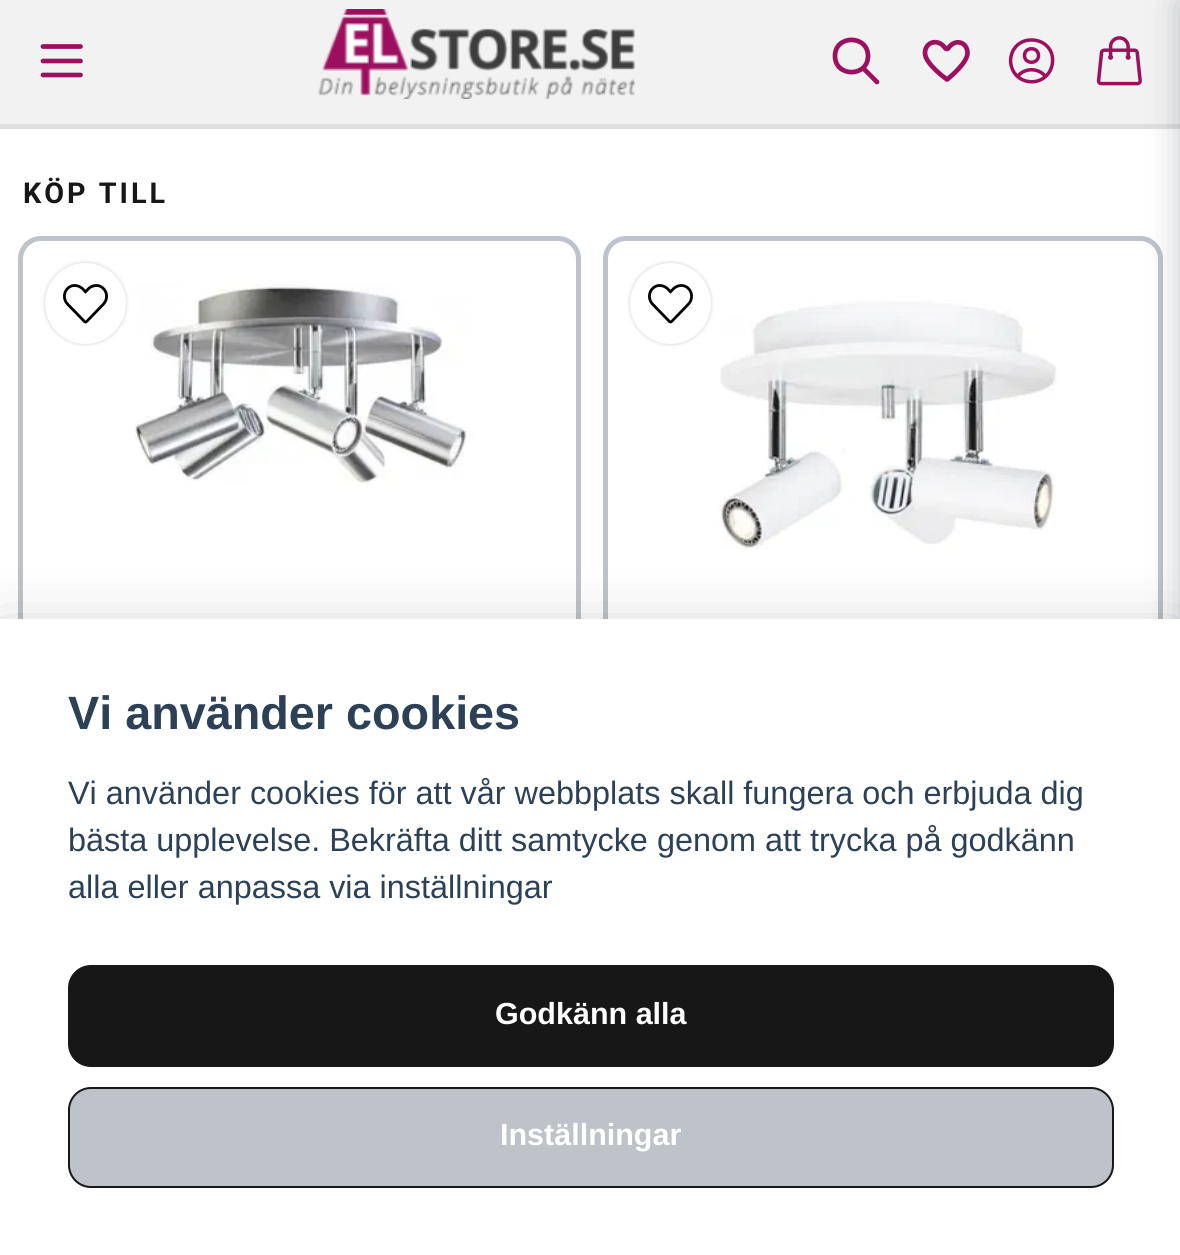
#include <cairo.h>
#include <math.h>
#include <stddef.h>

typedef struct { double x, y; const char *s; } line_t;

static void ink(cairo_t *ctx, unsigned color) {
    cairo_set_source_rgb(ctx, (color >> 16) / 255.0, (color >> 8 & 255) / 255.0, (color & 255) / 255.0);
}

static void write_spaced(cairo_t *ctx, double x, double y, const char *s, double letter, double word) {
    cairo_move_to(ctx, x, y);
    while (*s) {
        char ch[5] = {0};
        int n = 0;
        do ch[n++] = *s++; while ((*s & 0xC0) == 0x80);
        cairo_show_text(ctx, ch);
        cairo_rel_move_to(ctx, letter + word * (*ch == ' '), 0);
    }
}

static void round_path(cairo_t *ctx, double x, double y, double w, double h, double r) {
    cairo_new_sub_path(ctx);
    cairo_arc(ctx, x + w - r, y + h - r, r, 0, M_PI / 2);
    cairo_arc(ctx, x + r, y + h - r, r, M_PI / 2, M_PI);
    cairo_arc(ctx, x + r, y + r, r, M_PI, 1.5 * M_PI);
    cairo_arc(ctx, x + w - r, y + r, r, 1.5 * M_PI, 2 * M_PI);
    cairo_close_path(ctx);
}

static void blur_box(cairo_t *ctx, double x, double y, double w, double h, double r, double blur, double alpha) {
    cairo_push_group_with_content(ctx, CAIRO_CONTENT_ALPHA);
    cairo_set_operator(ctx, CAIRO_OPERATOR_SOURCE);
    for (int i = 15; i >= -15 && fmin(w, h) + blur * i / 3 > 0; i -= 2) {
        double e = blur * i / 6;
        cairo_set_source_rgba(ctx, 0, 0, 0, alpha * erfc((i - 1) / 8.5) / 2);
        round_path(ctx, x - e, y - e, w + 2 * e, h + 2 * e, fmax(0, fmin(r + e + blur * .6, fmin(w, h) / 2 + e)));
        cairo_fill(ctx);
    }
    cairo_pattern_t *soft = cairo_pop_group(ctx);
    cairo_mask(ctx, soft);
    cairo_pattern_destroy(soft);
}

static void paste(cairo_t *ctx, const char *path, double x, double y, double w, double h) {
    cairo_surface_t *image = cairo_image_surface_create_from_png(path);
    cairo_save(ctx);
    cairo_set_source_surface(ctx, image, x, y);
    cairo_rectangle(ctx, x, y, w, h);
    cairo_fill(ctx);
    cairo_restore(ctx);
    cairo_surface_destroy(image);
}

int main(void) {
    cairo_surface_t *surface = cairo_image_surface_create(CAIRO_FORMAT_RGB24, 1180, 1255);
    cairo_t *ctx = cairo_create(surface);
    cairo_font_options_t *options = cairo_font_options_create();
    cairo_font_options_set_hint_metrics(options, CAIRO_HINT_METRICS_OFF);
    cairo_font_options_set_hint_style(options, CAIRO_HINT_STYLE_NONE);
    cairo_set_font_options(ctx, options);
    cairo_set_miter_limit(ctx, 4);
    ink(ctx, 0xFFFFFF);
    cairo_paint(ctx);
    ink(ctx, 0xF2F2F2);
    cairo_rectangle(ctx, 0, 0, 1180, 124);
    cairo_fill(ctx);
    ink(ctx, 0xDFDFDF);
    cairo_rectangle(ctx, 0, 124, 1180, 5);
    cairo_fill(ctx);
    cairo_new_path(ctx);
    cairo_move_to(ctx, 43, 46.5);
    cairo_line_to(ctx, 80.5, 46.5);
    cairo_move_to(ctx, 43, 61);
    cairo_line_to(ctx, 80.5, 61);
    cairo_move_to(ctx, 43, 75);
    cairo_line_to(ctx, 80.5, 75);
    ink(ctx, 0x9C105F);
    cairo_set_line_width(ctx, 4.7);
    cairo_set_line_cap(ctx, CAIRO_LINE_CAP_ROUND);
    cairo_set_line_join(ctx, CAIRO_LINE_JOIN_ROUND);
    cairo_stroke(ctx);
    paste(ctx, "media/1.png", 318, 9, 317, 90);
    cairo_new_path(ctx);
    cairo_move_to(ctx, 877, 82);
    cairo_line_to(ctx, 863, 68);
    cairo_move_to(ctx, 868, 56);
    cairo_curve_to(ctx, 868, 77.5, 835, 77.5, 835, 56);
    cairo_curve_to(ctx, 835, 34.5, 868, 34.5, 868, 56);
    cairo_close_path(ctx);
    cairo_stroke(ctx);
    cairo_new_path(ctx);
    cairo_move_to(ctx, 945.5, 48.5);
    cairo_curve_to(ctx, 938, 37.5, 925, 42, 925, 53);
    cairo_curve_to(ctx, 925, 64, 947, 79.5, 947, 79.5);
    cairo_curve_to(ctx, 947, 79.5, 967.5, 63.5, 967.5, 53);
    cairo_curve_to(ctx, 967.5, 42.5, 955.5, 37.5, 948, 48.5);
    cairo_line_to(ctx, 947, 49);
    cairo_close_path(ctx);
    cairo_stroke(ctx);
    cairo_new_path(ctx);
    cairo_move_to(ctx, 1045.5, 76.5);
    cairo_curve_to(ctx, 1038.5, 67.5, 1024.5, 67.5, 1017.5, 76.5);
    cairo_move_to(ctx, 1045.5, 76.5);
    cairo_curve_to(ctx, 1049.5, 73, 1052, 68, 1052.5, 62.5);
    cairo_curve_to(ctx, 1055, 36.5, 1016.5, 31, 1011, 56.5);
    cairo_curve_to(ctx, 1009.5, 63.5, 1012, 71.5, 1017.5, 76.5);
    cairo_move_to(ctx, 1045.5, 76.5);
    cairo_curve_to(ctx, 1038, 83.5, 1025.5, 83.5, 1017.5, 76.5);
    cairo_move_to(ctx, 1038.5, 55.5);
    cairo_curve_to(ctx, 1038.5, 64.5, 1024.5, 64.5, 1024.5, 55.5);
    cairo_curve_to(ctx, 1024.5, 46.5, 1038.5, 46.5, 1038.5, 55.5);
    cairo_close_path(ctx);
    cairo_set_line_width(ctx, 3.5);
    cairo_stroke(ctx);
    paste(ctx, "media/2.png", 1096, 36, 46, 50);
    cairo_select_font_face(ctx, "Roboto", CAIRO_FONT_SLANT_NORMAL, CAIRO_FONT_WEIGHT_BOLD);
    cairo_set_font_size(ctx, 28.75);
    ink(ctx, 0x171717);
    write_spaced(ctx, 23, 203, "KÖP TILL", 3, 0);
    round_path(ctx, 20.5, 238.5, 558, 936, 20.5);
    ink(ctx, 0xBDC3C8);
    cairo_set_line_width(ctx, 5);
    cairo_set_line_cap(ctx, CAIRO_LINE_CAP_BUTT);
    cairo_set_line_join(ctx, CAIRO_LINE_JOIN_MITER);
    cairo_stroke(ctx);
    ink(ctx, 0x000000);
    blur_box(ctx, 45, 263, 81, 81, 40.5, 2, 0.2);
    ink(ctx, 0xFFFFFF);
    cairo_arc(ctx, 85.5, 303.5, 40.5, 0, 2 * M_PI);
    cairo_fill(ctx);
    paste(ctx, "media/3.png", 63, 284, 45, 40);
    paste(ctx, "media/4.png", 134, 283, 340, 202);
    round_path(ctx, 605.5, 238.5, 555, 936, 20.5);
    ink(ctx, 0xBDC3C8);
    cairo_stroke(ctx);
    ink(ctx, 0x000000);
    blur_box(ctx, 630, 263, 81, 81, 40.5, 2, 0.2);
    ink(ctx, 0xFFFFFF);
    cairo_arc(ctx, 670.5, 303.5, 40.5, 0, 2 * M_PI);
    cairo_fill(ctx);
    paste(ctx, "media/3.png", 648, 284, 45, 40);
    paste(ctx, "media/5.png", 719, 300, 338, 250);
    ink(ctx, 0x3C4257);
    blur_box(ctx, 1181, 2, 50, 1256, 0, 17, 0.3);
    ink(ctx, 0x020203);
    blur_box(ctx, 0, 641, 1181, 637, 0, 34, 0.28);
    ink(ctx, 0xFFFFFF);
    cairo_rectangle(ctx, 0, 619, 1180, 636);
    cairo_fill(ctx);
    cairo_select_font_face(ctx, "Liberation Sans", CAIRO_FONT_SLANT_NORMAL, CAIRO_FONT_WEIGHT_BOLD);
    cairo_set_font_size(ctx, 46.75);
    ink(ctx, 0x2D4156);
    cairo_move_to(ctx, 68, 729);
    cairo_show_text(ctx, "Vi använder cookies");
    cairo_select_font_face(ctx, "Liberation Sans", CAIRO_FONT_SLANT_NORMAL, CAIRO_FONT_WEIGHT_NORMAL);
    cairo_set_font_size(ctx, 32.4);
    {
        static const line_t items[] = {
            {68, 804, "Vi använder cookies för att vår webbplats skall fungera och erbjuda dig"},
            {68, 851, "bästa upplevelse. Bekräfta ditt samtycke genom att trycka på godkänn"},
            {68, 898, "alla eller anpassa via inställningar"},
        };
        for (size_t i = 0; i < sizeof items / sizeof *items; i++) {
            cairo_move_to(ctx, items[i].x, items[i].y);
            cairo_show_text(ctx, items[i].s);
        }
    }
    ink(ctx, 0x171717);
    round_path(ctx, 69, 966, 1044, 100, 22);
    cairo_fill_preserve(ctx);
    cairo_set_line_width(ctx, 2);
    cairo_stroke(ctx);
    cairo_select_font_face(ctx, "Liberation Sans", CAIRO_FONT_SLANT_NORMAL, CAIRO_FONT_WEIGHT_BOLD);
    cairo_set_font_size(ctx, 30.5);
    ink(ctx, 0xFFFFFF);
    cairo_move_to(ctx, 495, 1024);
    cairo_show_text(ctx, "Godkänn alla");
    ink(ctx, 0xBDC3C8);
    round_path(ctx, 69, 1088, 1044, 99, 22);
    cairo_fill_preserve(ctx);
    ink(ctx, 0x171717);
    cairo_stroke(ctx);
    ink(ctx, 0xFFFFFF);
    cairo_move_to(ctx, 500, 1145);
    cairo_show_text(ctx, "Inställningar");
    cairo_surface_write_to_png(surface, "image.png");
    cairo_font_options_destroy(options);
    cairo_destroy(ctx);
    cairo_surface_destroy(surface);
    return 0;
}
